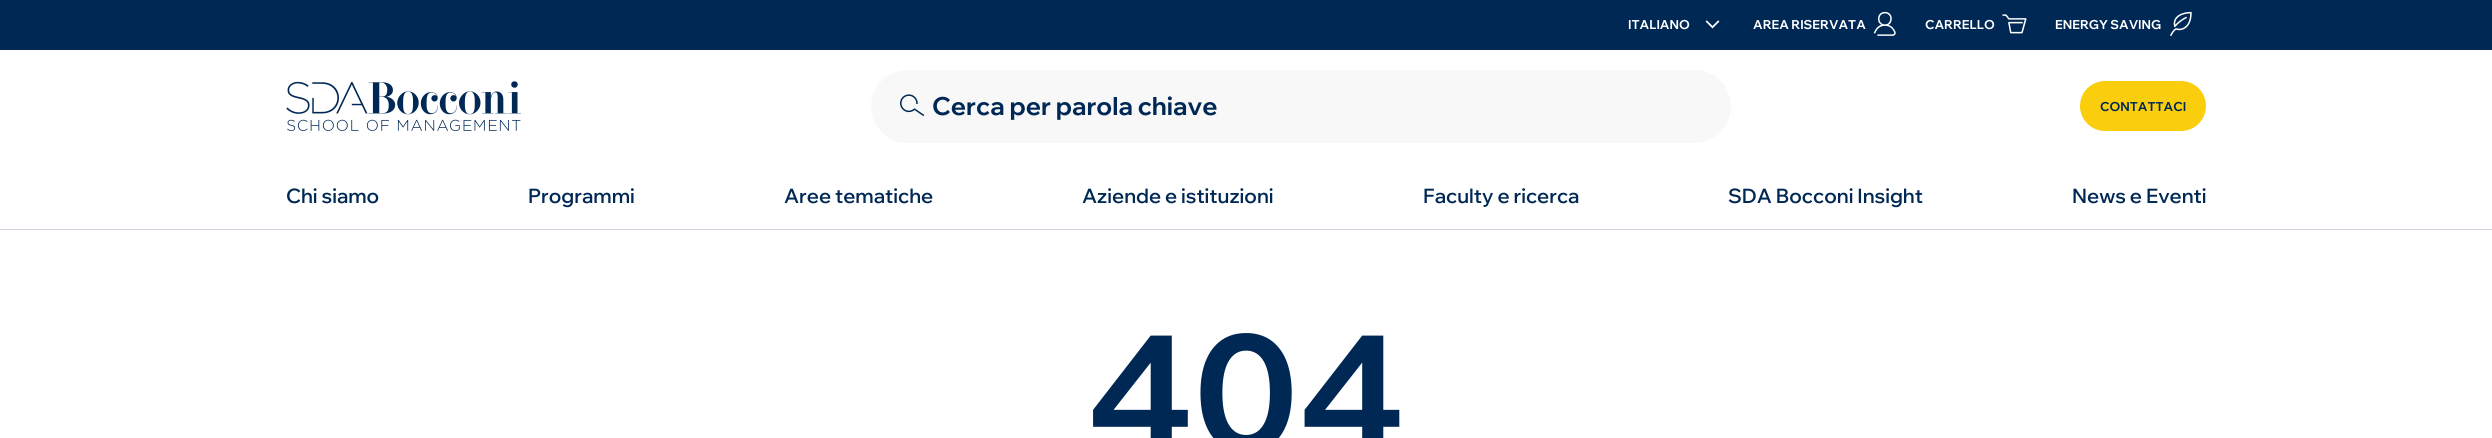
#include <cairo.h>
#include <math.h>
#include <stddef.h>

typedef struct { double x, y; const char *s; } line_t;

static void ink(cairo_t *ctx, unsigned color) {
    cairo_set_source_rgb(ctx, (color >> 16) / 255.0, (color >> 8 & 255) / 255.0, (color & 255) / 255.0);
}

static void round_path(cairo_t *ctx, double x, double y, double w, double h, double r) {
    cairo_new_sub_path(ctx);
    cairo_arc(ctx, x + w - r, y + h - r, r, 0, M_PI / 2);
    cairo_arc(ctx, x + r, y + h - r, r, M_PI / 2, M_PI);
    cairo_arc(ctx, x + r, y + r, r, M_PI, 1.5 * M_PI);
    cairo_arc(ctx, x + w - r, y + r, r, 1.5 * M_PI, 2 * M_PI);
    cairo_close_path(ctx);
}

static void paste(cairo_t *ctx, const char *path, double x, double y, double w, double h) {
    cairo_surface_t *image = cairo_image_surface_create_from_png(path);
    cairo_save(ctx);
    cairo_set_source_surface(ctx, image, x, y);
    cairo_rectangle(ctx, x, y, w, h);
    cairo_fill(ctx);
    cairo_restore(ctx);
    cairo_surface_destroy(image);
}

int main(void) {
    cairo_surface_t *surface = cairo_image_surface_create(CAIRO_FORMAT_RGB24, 2492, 438);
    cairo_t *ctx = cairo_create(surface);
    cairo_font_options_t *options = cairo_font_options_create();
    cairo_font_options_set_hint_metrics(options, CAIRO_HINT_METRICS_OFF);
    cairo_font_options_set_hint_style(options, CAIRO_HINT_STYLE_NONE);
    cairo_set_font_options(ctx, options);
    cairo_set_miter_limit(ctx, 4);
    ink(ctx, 0xFFFFFF);
    cairo_paint(ctx);
    ink(ctx, 0x002855);
    cairo_rectangle(ctx, 0, 0, 2492, 50);
    cairo_fill(ctx);
    cairo_select_font_face(ctx, "Wix Madefor Display", CAIRO_FONT_SLANT_NORMAL, CAIRO_FONT_WEIGHT_BOLD);
    cairo_set_font_size(ctx, 12.5);
    ink(ctx, 0xFFFFFF);
    cairo_move_to(ctx, 1628, 29);
    cairo_show_text(ctx, "ITALIANO");
    paste(ctx, "media/1.png", 1705, 20, 15, 9);
    cairo_move_to(ctx, 1753, 29);
    cairo_show_text(ctx, "AREA RISERVATA");
    paste(ctx, "media/2.png", 1873, 11, 23, 25);
    cairo_move_to(ctx, 1925, 29);
    cairo_show_text(ctx, "CARRELLO");
    paste(ctx, "media/3.png", 2002, 14, 25, 20);
    cairo_move_to(ctx, 2055, 29);
    cairo_show_text(ctx, "ENERGY SAVING");
    paste(ctx, "media/4.png", 2170, 11, 22, 25);
    paste(ctx, "media/5.png", 286, 81, 235, 50);
    ink(ctx, 0xF8F8F8);
    round_path(ctx, 871, 70, 860, 73, 36.5);
    cairo_fill(ctx);
    paste(ctx, "media/6.png", 900, 94, 25, 23);
    cairo_set_font_size(ctx, 25);
    ink(ctx, 0x002855);
    cairo_move_to(ctx, 932, 115);
    cairo_show_text(ctx, "Cerca per parola chiave");
    ink(ctx, 0xFBCE0D);
    round_path(ctx, 2080, 81, 126, 50, 25);
    cairo_fill(ctx);
    cairo_set_font_size(ctx, 12.5);
    ink(ctx, 0x002855);
    cairo_move_to(ctx, 2100, 111);
    cairo_show_text(ctx, "CONTATTACI");
    ink(ctx, 0xCCD4DD);
    cairo_rectangle(ctx, 0, 229, 2492, 1);
    cairo_fill(ctx);
    cairo_select_font_face(ctx, "Wix Madefor Display SemiBold", CAIRO_FONT_SLANT_NORMAL, CAIRO_FONT_WEIGHT_NORMAL);
    cairo_set_font_size(ctx, 20);
    ink(ctx, 0x002855);
    {
        static const line_t items[] = {
            {286, 203, "Chi siamo"},
            {528, 203, "Programmi"},
            {784, 203, "Aree tematiche"},
            {1082, 203, "Aziende e istituzioni"},
            {1423, 203, "Faculty e ricerca"},
            {1728, 203, "SDA Bocconi Insight"},
            {2072, 203, "News e Eventi"},
        };
        for (size_t i = 0; i < sizeof items / sizeof *items; i++) {
            cairo_move_to(ctx, items[i].x, items[i].y);
            cairo_show_text(ctx, items[i].s);
        }
    }
    cairo_select_font_face(ctx, "Wix Madefor Display", CAIRO_FONT_SLANT_NORMAL, CAIRO_FONT_WEIGHT_BOLD);
    cairo_set_font_size(ctx, 160);
    cairo_move_to(ctx, 1087, 450);
    cairo_show_text(ctx, "404");
    cairo_surface_write_to_png(surface, "image.png");
    cairo_font_options_destroy(options);
    cairo_destroy(ctx);
    cairo_surface_destroy(surface);
    return 0;
}
